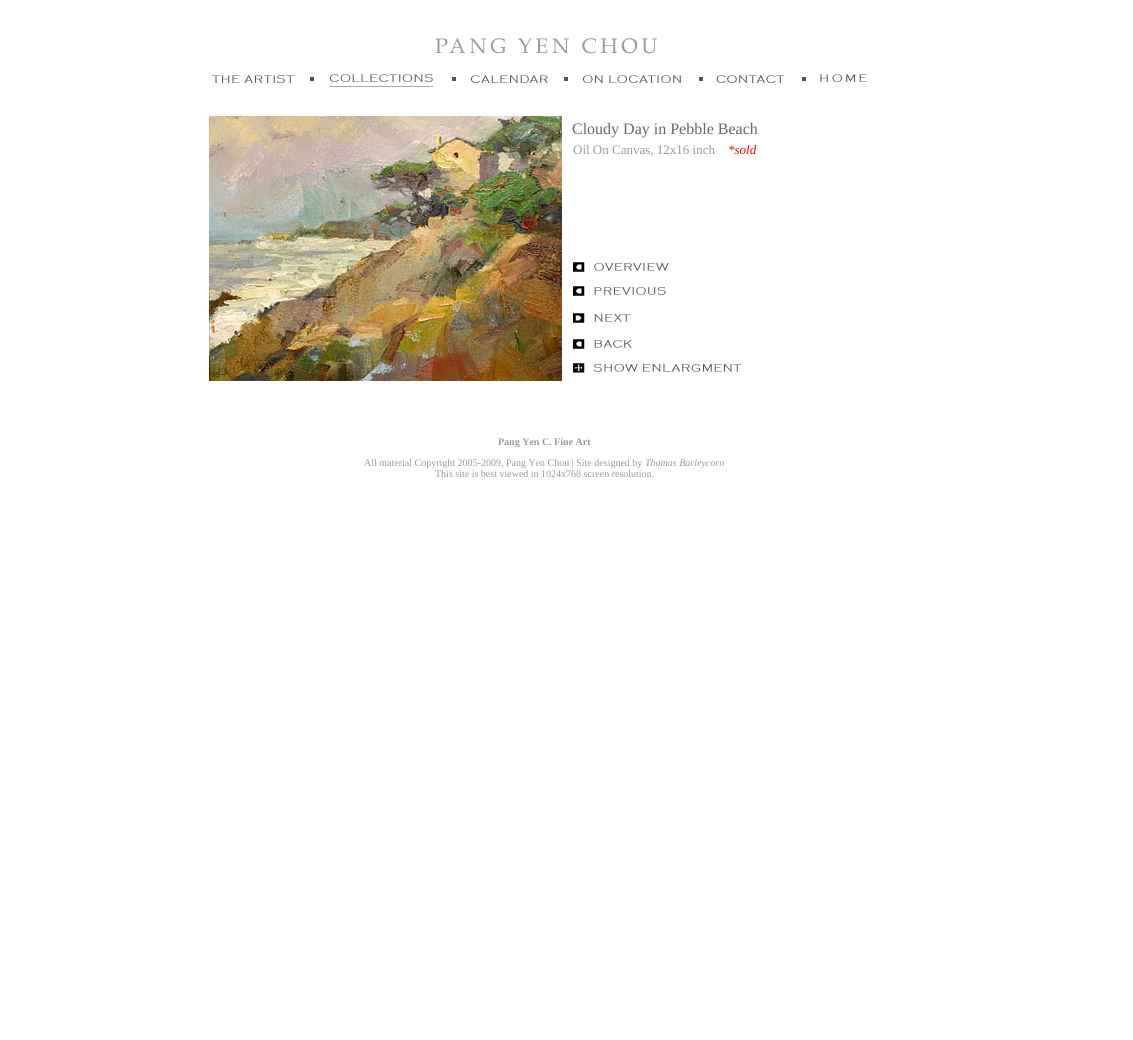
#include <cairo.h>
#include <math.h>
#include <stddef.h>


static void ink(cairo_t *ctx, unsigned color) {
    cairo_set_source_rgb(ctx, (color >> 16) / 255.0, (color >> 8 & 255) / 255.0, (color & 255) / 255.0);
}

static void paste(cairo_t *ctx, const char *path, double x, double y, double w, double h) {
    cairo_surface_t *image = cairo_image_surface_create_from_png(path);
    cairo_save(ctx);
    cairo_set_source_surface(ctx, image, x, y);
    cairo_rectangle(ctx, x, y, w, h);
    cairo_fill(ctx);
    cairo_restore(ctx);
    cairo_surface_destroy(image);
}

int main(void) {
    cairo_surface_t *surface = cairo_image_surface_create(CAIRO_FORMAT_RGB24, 1133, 1040);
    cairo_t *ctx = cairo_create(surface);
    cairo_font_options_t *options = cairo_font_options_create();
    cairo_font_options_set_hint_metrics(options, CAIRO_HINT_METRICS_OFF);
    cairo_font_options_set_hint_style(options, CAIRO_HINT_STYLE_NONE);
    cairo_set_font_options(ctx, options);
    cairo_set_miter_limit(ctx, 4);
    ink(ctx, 0xFFFFFF);
    cairo_paint(ctx);
    paste(ctx, "media/1.png", 435, 38, 222, 16);
    paste(ctx, "media/2.png", 212, 75, 82, 8);
    ink(ctx, 0x525252);
    cairo_rectangle(ctx, 310, 77, 4, 4);
    cairo_fill(ctx);
    paste(ctx, "media/3.png", 329, 74, 105, 13);
    cairo_rectangle(ctx, 452, 77, 4, 4);
    cairo_fill(ctx);
    paste(ctx, "media/4.png", 471, 75, 77, 8);
    cairo_rectangle(ctx, 564, 77, 4, 4);
    cairo_fill(ctx);
    paste(ctx, "media/5.png", 583, 75, 99, 8);
    cairo_rectangle(ctx, 699, 77, 4, 4);
    cairo_fill(ctx);
    paste(ctx, "media/6.png", 716, 75, 68, 8);
    cairo_rectangle(ctx, 802, 77, 4, 4);
    cairo_fill(ctx);
    paste(ctx, "media/7.png", 820, 74, 47, 8);
    paste(ctx, "media/8.png", 209, 116, 353, 265);
    cairo_select_font_face(ctx, "Liberation Serif", CAIRO_FONT_SLANT_NORMAL, CAIRO_FONT_WEIGHT_NORMAL);
    cairo_set_font_size(ctx, 16);
    ink(ctx, 0x666666);
    cairo_move_to(ctx, 572, 134);
    cairo_show_text(ctx, "Cloudy Day in Pebble Beach");
    cairo_set_font_size(ctx, 13);
    ink(ctx, 0x999999);
    cairo_move_to(ctx, 573, 154);
    cairo_show_text(ctx, "Oil On Canvas, 12x16 inch");
    cairo_select_font_face(ctx, "Liberation Serif", CAIRO_FONT_SLANT_ITALIC, CAIRO_FONT_WEIGHT_NORMAL);
    ink(ctx, 0xFF0000);
    cairo_move_to(ctx, 728, 154);
    cairo_show_text(ctx, "*sold");
    paste(ctx, "media/9.png", 573, 262, 96, 10);
    paste(ctx, "media/10.png", 573, 286, 93, 10);
    paste(ctx, "media/11.png", 573, 313, 57, 10);
    paste(ctx, "media/12.png", 573, 339, 59, 10);
    paste(ctx, "media/13.png", 573, 363, 168, 10);
    cairo_select_font_face(ctx, "Liberation Serif", CAIRO_FONT_SLANT_NORMAL, CAIRO_FONT_WEIGHT_BOLD);
    cairo_set_font_size(ctx, 10);
    ink(ctx, 0x999999);
    cairo_move_to(ctx, 498, 445);
    cairo_show_text(ctx, "Pang Yen C. Fine Art");
    cairo_select_font_face(ctx, "Liberation Serif", CAIRO_FONT_SLANT_NORMAL, CAIRO_FONT_WEIGHT_NORMAL);
    cairo_move_to(ctx, 364, 466);
    cairo_show_text(ctx, "All material Copyright 2005-2009, Pang Yen Chou | Site designed by");
    cairo_select_font_face(ctx, "Liberation Serif", CAIRO_FONT_SLANT_ITALIC, CAIRO_FONT_WEIGHT_NORMAL);
    cairo_move_to(ctx, 645, 466);
    cairo_show_text(ctx, "Thomas Barleycorn");
    cairo_select_font_face(ctx, "Liberation Serif", CAIRO_FONT_SLANT_NORMAL, CAIRO_FONT_WEIGHT_NORMAL);
    cairo_move_to(ctx, 435, 477);
    cairo_show_text(ctx, "This site is best viewed in 1024x768 screen resolution.");
    cairo_surface_write_to_png(surface, "image.png");
    cairo_font_options_destroy(options);
    cairo_destroy(ctx);
    cairo_surface_destroy(surface);
    return 0;
}
